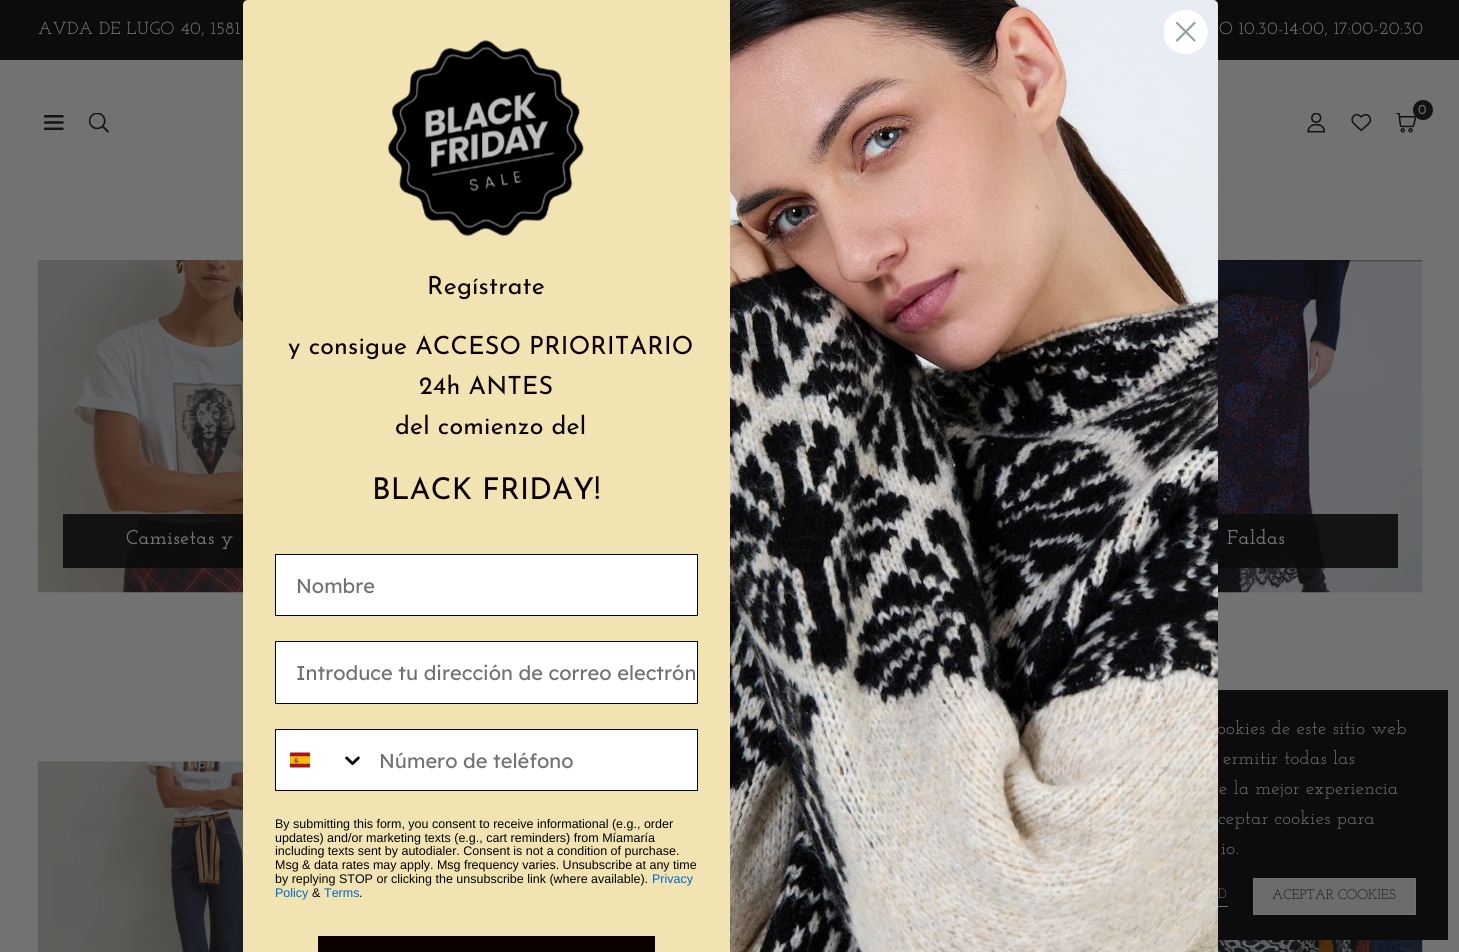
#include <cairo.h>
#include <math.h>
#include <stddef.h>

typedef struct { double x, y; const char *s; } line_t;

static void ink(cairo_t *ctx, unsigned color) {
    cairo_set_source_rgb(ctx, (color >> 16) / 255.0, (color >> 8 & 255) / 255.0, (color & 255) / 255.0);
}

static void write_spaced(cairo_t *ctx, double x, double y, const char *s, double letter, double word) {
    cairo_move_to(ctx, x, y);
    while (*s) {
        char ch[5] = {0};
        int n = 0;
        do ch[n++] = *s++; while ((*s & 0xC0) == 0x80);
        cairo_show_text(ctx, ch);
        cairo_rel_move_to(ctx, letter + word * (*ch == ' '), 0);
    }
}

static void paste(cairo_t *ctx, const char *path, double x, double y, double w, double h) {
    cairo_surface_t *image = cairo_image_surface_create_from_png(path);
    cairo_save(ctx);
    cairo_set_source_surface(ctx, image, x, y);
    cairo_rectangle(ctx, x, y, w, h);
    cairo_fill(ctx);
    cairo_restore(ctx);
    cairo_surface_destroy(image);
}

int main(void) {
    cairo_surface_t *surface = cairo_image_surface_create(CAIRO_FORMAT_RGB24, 1459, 952);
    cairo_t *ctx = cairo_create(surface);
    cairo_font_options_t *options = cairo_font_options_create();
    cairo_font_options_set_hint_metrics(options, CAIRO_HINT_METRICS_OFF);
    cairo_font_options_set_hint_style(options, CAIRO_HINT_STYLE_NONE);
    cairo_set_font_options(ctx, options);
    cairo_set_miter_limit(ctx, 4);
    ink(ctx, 0x727272);
    cairo_paint(ctx);
    ink(ctx, 0x0C0C0C);
    cairo_rectangle(ctx, 0, 0, 1459, 60);
    cairo_fill(ctx);
    cairo_select_font_face(ctx, "Josefin Slab Medium", CAIRO_FONT_SLANT_NORMAL, CAIRO_FONT_WEIGHT_NORMAL);
    cairo_set_font_size(ctx, 17.5);
    ink(ctx, 0x727272);
    write_spaced(ctx, 38, 34, "AVDA DE LUGO 40, 1581", 0.4, 0);
    write_spaced(ctx, 1219, 34, "O 10.30-14:00, 17:00-20:30", 0.4, 0);
    paste(ctx, "media/1.png", 1396, 113, 20, 20);
    ink(ctx, 0x131313);
    cairo_arc(ctx, 1423, 110, 10, 0, 2 * M_PI);
    cairo_fill(ctx);
    cairo_select_font_face(ctx, "Josefin Slab", CAIRO_FONT_SLANT_NORMAL, CAIRO_FONT_WEIGHT_BOLD);
    cairo_set_font_size(ctx, 13.75);
    ink(ctx, 0x727272);
    write_spaced(ctx, 1418, 114, "0", 0.4, 0);
    paste(ctx, "media/2.png", 1307, 113, 19, 20);
    paste(ctx, "media/3.png", 1351, 113, 20, 19);
    paste(ctx, "media/4.png", 44, 115, 20, 15);
    paste(ctx, "media/5.png", 89, 113, 20, 20);
    ink(ctx, 0x0C0C0C);
    cairo_rectangle(ctx, 1218, 690, 230, 250);
    cairo_fill(ctx);
    cairo_select_font_face(ctx, "Josefin Slab Thin", CAIRO_FONT_SLANT_NORMAL, CAIRO_FONT_WEIGHT_NORMAL);
    cairo_set_font_size(ctx, 18.75);
    ink(ctx, 0x727272);
    write_spaced(ctx, 1217, 734, "ookies de este sitio web", 0.4, 0);
    ink(ctx, 0xF1E4B2);
    cairo_new_path(ctx);
    cairo_move_to(ctx, 248, 0);
    cairo_line_to(ctx, 1213, 0);
    cairo_curve_to(ctx, 1216, 0, 1218, 2, 1218, 5);
    cairo_line_to(ctx, 1218, 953);
    cairo_line_to(ctx, 243, 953);
    cairo_line_to(ctx, 243, 5);
    cairo_curve_to(ctx, 243, 2, 245, 0, 248, 0);
    cairo_close_path(ctx);
    cairo_fill(ctx);
    paste(ctx, "media/9.png", 730, 0, 488, 952);
    ink(ctx, 0xFFFFFF);
    cairo_arc(ctx, 1185.5, 32, 21, 0, 2 * M_PI);
    cairo_fill(ctx);
    cairo_save(ctx);
    cairo_rectangle(ctx, 1164, 10, 44, 44);
    cairo_clip(ctx);
    cairo_arc(ctx, 1185.5, 32, 21, 0, 2 * M_PI);
    cairo_set_line_width(ctx, 2.2);
    cairo_stroke(ctx);
    cairo_restore(ctx);
    cairo_new_path(ctx);
    cairo_move_to(ctx, 1177, 23);
    cairo_line_to(ctx, 1194.5, 40.5);
    cairo_move_to(ctx, 1177, 40.5);
    cairo_line_to(ctx, 1194.5, 23);
    cairo_close_path(ctx);
    ink(ctx, 0x93A496);
    cairo_set_line_width(ctx, 2.2);
    cairo_set_line_cap(ctx, CAIRO_LINE_CAP_ROUND);
    cairo_set_line_join(ctx, CAIRO_LINE_JOIN_ROUND);
    cairo_stroke(ctx);
    paste(ctx, "media/6.png", 388, 40, 196, 196);
    cairo_select_font_face(ctx, "Josefin Sans Thin", CAIRO_FONT_SLANT_NORMAL, CAIRO_FONT_WEIGHT_NORMAL);
    cairo_set_font_size(ctx, 25);
    ink(ctx, 0x0B0101);
    {
        static const line_t items[] = {
            {427, 294, "Regístrate"},
            {288, 354, "y consigue ACCESO PRIORITARIO"},
            {419, 394, "24h ANTES"},
            {395, 434, "del comienzo del"},
        };
        for (size_t i = 0; i < sizeof items / sizeof *items; i++) {
            write_spaced(ctx, items[i].x, items[i].y, items[i].s, 0.2, 0);
        }
    }
    cairo_set_font_size(ctx, 30);
    write_spaced(ctx, 372, 499, "BLACK FRIDAY!", 0.2, 0);
    ink(ctx, 0xFFFFFF);
    cairo_rectangle(ctx, 275.5, 554.5, 422, 61);
    cairo_fill_preserve(ctx);
    ink(ctx, 0x050505);
    cairo_set_line_width(ctx, 1);
    cairo_set_line_cap(ctx, CAIRO_LINE_CAP_BUTT);
    cairo_set_line_join(ctx, CAIRO_LINE_JOIN_MITER);
    cairo_stroke(ctx);
    cairo_select_font_face(ctx, "Lexend", CAIRO_FONT_SLANT_NORMAL, CAIRO_FONT_WEIGHT_NORMAL);
    cairo_set_font_size(ctx, 20);
    ink(ctx, 0x727272);
    cairo_move_to(ctx, 296, 593);
    cairo_show_text(ctx, "Nombre");
    ink(ctx, 0xFFFFFF);
    cairo_rectangle(ctx, 275.5, 641.5, 422, 62);
    cairo_fill_preserve(ctx);
    ink(ctx, 0x050505);
    cairo_stroke(ctx);
    ink(ctx, 0x727272);
    cairo_move_to(ctx, 296, 680);
    cairo_show_text(ctx, "Introduce tu dirección de correo electrón");
    ink(ctx, 0xFFFFFF);
    cairo_rectangle(ctx, 275.5, 729.5, 422, 61);
    cairo_fill_preserve(ctx);
    ink(ctx, 0x050505);
    cairo_stroke(ctx);
    paste(ctx, "media/7.png", 290, 752, 20, 16);
    paste(ctx, "media/8.png", 345, 756, 15, 9);
    ink(ctx, 0x727272);
    cairo_move_to(ctx, 379, 768);
    cairo_show_text(ctx, "Número de teléfono");
    cairo_select_font_face(ctx, "Liberation Sans", CAIRO_FONT_SLANT_NORMAL, CAIRO_FONT_WEIGHT_NORMAL);
    cairo_set_font_size(ctx, 12.5);
    ink(ctx, 0x000000);
    {
        static const line_t items[] = {
            {275, 828, "By submitting this form, you consent to receive informational (e.g., order"},
            {275, 842, "updates) and/or marketing texts (e.g., cart reminders) from Míamaría"},
            {275, 855, "including texts sent by autodialer. Consent is not a condition of purchase."},
            {275, 869, "Msg & data rates may apply. Msg frequency varies. Unsubscribe at any time"},
            {275, 883, "by replying STOP or clicking the unsubscribe link (where available)."},
        };
        for (size_t i = 0; i < sizeof items / sizeof *items; i++) {
            cairo_move_to(ctx, items[i].x, items[i].y);
            cairo_show_text(ctx, items[i].s);
        }
    }
    ink(ctx, 0x0066CC);
    cairo_move_to(ctx, 652, 883);
    cairo_show_text(ctx, "Privacy");
    cairo_move_to(ctx, 275, 897);
    cairo_show_text(ctx, "Policy");
    ink(ctx, 0x000000);
    cairo_move_to(ctx, 312, 897);
    cairo_show_text(ctx, "&");
    ink(ctx, 0x0066CC);
    cairo_move_to(ctx, 324, 897);
    cairo_show_text(ctx, "Terms");
    ink(ctx, 0x000000);
    cairo_move_to(ctx, 359, 897);
    cairo_show_text(ctx, ".");
    ink(ctx, 0x0B0101);
    cairo_rectangle(ctx, 318, 936, 337, 16);
    cairo_fill(ctx);
    paste(ctx, "media/10.png", 37, 260, 206, 333);
    cairo_set_source_rgba(ctx, 0.047, 0.047, 0.047, 0.9);
    cairo_rectangle(ctx, 63, 514, 180, 54);
    cairo_fill(ctx);
    cairo_select_font_face(ctx, "Josefin Slab SemiBold", CAIRO_FONT_SLANT_NORMAL, CAIRO_FONT_WEIGHT_NORMAL);
    cairo_set_font_size(ctx, 20);
    ink(ctx, 0x727272);
    write_spaced(ctx, 126, 544, "Camisetas y", 0.4, 0);
    paste(ctx, "media/11.png", 1218, 260, 205, 333);
    cairo_set_source_rgba(ctx, 0.047, 0.047, 0.047, 0.9);
    cairo_rectangle(ctx, 1218, 514, 180, 54);
    cairo_fill(ctx);
    ink(ctx, 0x727272);
    write_spaced(ctx, 1227, 544, "Faldas", 0.4, 0);
    paste(ctx, "media/12.png", 37, 761, 206, 191);
    paste(ctx, "media/13.png", 1218, 940, 205, 12);
    cairo_select_font_face(ctx, "Josefin Slab Thin", CAIRO_FONT_SLANT_NORMAL, CAIRO_FONT_WEIGHT_NORMAL);
    cairo_set_font_size(ctx, 18.75);
    {
        static const line_t items[] = {
            {1223, 764, "ermitir todas las"},
            {1219, 794, "e la mejor experiencia"},
            {1218, 824, "ceptar cookies para"},
            {1221, 854, "io."},
        };
        for (size_t i = 0; i < sizeof items / sizeof *items; i++) {
            write_spaced(ctx, items[i].x, items[i].y, items[i].s, 0.4, 0);
        }
    }
    cairo_rectangle(ctx, 1218, 906, 10, 1);
    cairo_fill(ctx);
    cairo_set_font_size(ctx, 13.75);
    write_spaced(ctx, 1218, 898, "D", 0.4, 0);
    ink(ctx, 0x6C6C6C);
    cairo_rectangle(ctx, 1253.5, 878.5, 162, 36);
    cairo_fill_preserve(ctx);
    ink(ctx, 0x727272);
    cairo_stroke(ctx);
    ink(ctx, 0x131313);
    cairo_move_to(ctx, 1272, 899);
    cairo_show_text(ctx, "ACEPTAR COOKIES");
    cairo_surface_write_to_png(surface, "image.png");
    cairo_font_options_destroy(options);
    cairo_destroy(ctx);
    cairo_surface_destroy(surface);
    return 0;
}
